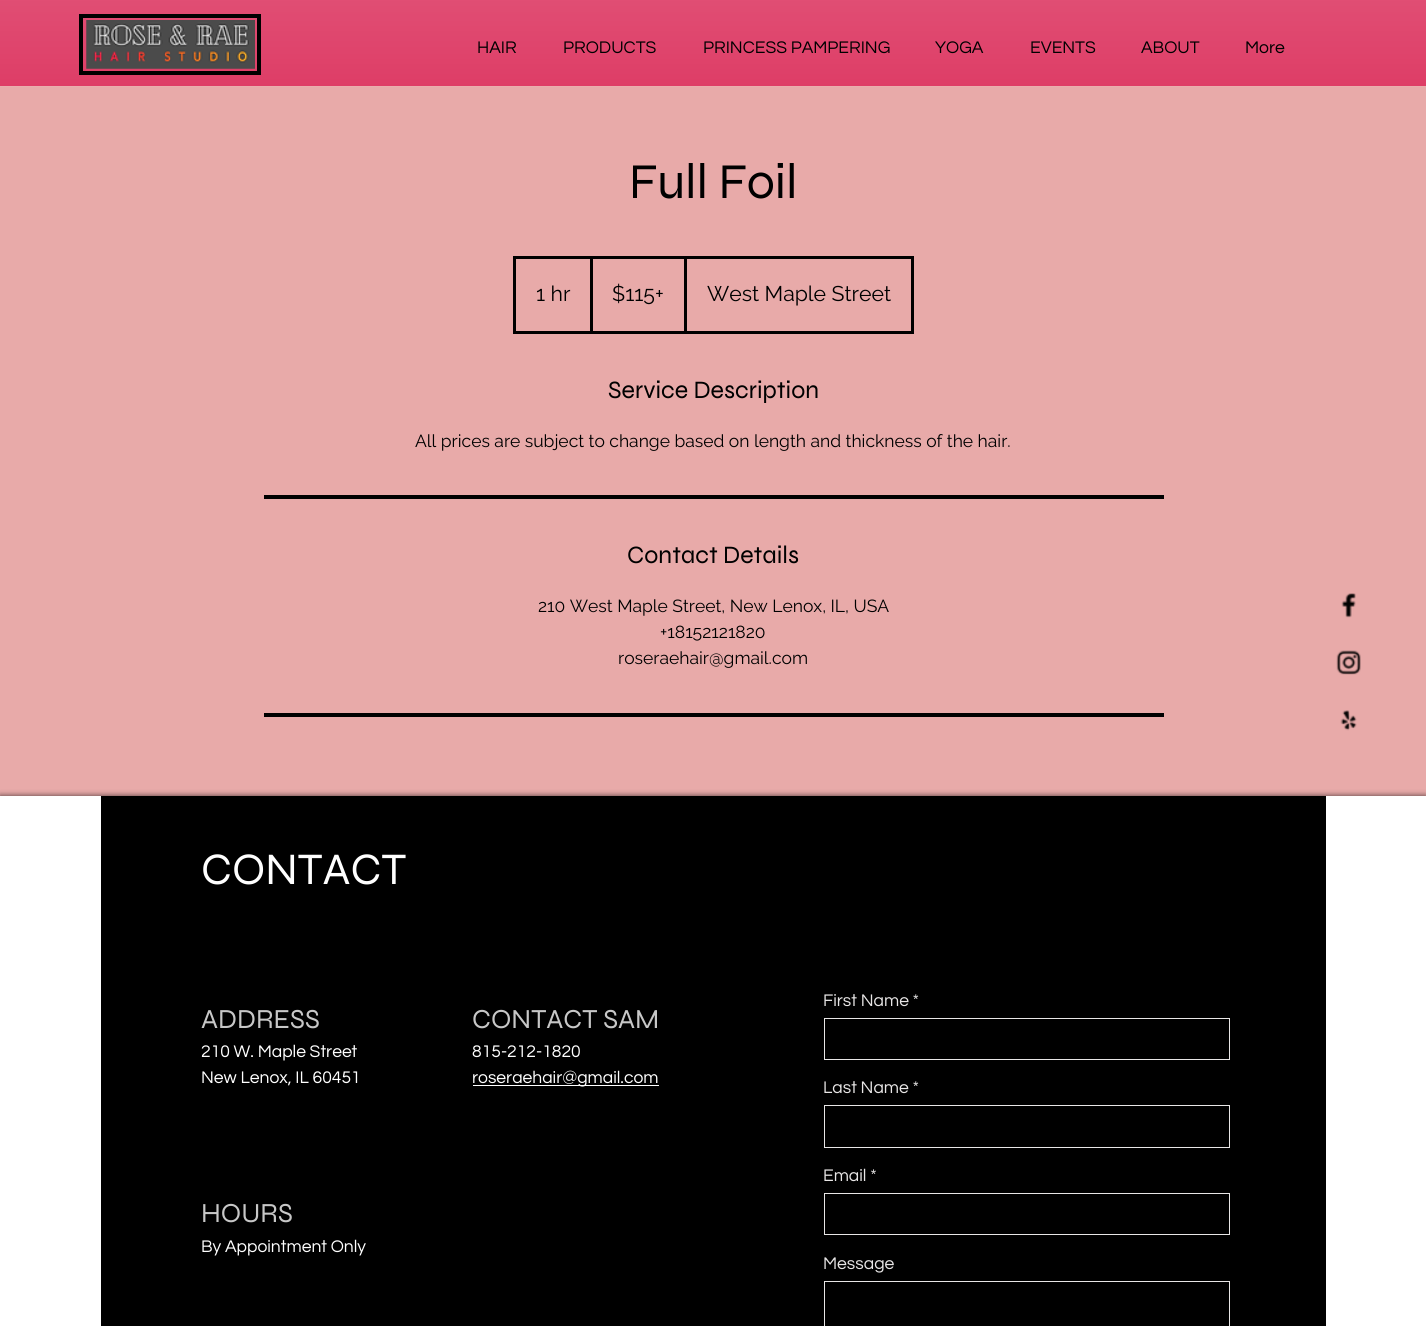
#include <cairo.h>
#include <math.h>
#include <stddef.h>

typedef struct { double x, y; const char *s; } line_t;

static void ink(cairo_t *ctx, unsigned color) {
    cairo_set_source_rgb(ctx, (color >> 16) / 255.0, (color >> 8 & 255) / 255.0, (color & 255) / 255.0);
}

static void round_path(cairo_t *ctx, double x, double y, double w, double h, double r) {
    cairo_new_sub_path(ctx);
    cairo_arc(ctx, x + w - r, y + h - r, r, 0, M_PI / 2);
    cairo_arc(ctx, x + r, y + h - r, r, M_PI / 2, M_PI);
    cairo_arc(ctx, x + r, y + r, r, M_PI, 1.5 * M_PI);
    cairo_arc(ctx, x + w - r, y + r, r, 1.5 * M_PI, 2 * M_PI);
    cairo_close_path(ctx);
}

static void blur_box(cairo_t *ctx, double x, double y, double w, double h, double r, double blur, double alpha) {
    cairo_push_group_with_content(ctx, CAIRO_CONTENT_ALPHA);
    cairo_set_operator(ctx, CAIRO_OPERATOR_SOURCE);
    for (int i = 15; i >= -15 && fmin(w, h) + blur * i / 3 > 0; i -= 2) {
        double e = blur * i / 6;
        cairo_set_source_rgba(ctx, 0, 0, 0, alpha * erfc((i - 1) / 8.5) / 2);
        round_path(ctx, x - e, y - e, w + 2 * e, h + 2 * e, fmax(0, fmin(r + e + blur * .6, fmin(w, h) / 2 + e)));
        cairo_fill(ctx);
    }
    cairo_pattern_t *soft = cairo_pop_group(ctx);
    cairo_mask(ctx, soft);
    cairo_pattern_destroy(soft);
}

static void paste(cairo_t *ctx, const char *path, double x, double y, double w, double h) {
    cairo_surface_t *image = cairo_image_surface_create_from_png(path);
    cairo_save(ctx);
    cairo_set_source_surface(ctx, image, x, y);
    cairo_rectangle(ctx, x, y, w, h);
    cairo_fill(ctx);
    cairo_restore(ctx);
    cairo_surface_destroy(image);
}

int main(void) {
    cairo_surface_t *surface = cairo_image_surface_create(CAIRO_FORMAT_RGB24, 1426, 1326);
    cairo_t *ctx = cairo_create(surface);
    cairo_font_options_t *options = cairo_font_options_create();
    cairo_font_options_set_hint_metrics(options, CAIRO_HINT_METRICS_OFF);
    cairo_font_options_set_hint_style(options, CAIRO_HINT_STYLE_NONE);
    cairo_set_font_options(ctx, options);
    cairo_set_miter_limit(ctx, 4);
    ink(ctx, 0xE8AAA9);
    cairo_paint(ctx);
    ink(ctx, 0xD61043);
    cairo_rectangle(ctx, 0, 0, 1426, 86);
    cairo_fill(ctx);
    paste(ctx, "media/1.png", 0, 0, 1426, 87);
    cairo_rectangle(ctx, 81, 16, 178, 57);
    ink(ctx, 0x000000);
    cairo_set_line_width(ctx, 4);
    cairo_stroke(ctx);
    paste(ctx, "media/2.png", 86, 20, 169, 49);
    cairo_select_font_face(ctx, "Questrial", CAIRO_FONT_SLANT_NORMAL, CAIRO_FONT_WEIGHT_NORMAL);
    cairo_set_font_size(ctx, 17.5);
    {
        static const line_t items[] = {
            {477, 53, "HAIR"},
            {563, 53, "PRODUCTS"},
            {703, 53, "PRINCESS PAMPERING"},
            {935, 53, "YOGA"},
            {1030, 53, "EVENTS"},
            {1141, 53, "ABOUT"},
            {1245, 53, "More"},
        };
        for (size_t i = 0; i < sizeof items / sizeof *items; i++) {
            cairo_move_to(ctx, items[i].x, items[i].y);
            cairo_show_text(ctx, items[i].s);
        }
    }
    cairo_select_font_face(ctx, "Syne", CAIRO_FONT_SLANT_NORMAL, CAIRO_FONT_WEIGHT_NORMAL);
    cairo_set_font_size(ctx, 50);
    cairo_move_to(ctx, 629, 198);
    cairo_show_text(ctx, "Full Foil");
    cairo_rectangle(ctx, 514.5, 257.5, 398, 75);
    cairo_set_line_width(ctx, 3);
    cairo_stroke(ctx);
    cairo_select_font_face(ctx, "Raleway", CAIRO_FONT_SLANT_NORMAL, CAIRO_FONT_WEIGHT_NORMAL);
    cairo_set_font_size(ctx, 21.25);
    cairo_move_to(ctx, 536, 301);
    cairo_show_text(ctx, "1 hr");
    cairo_rectangle(ctx, 590, 259, 3, 72);
    cairo_fill(ctx);
    cairo_move_to(ctx, 612, 301);
    cairo_show_text(ctx, "$115+");
    cairo_rectangle(ctx, 684, 259, 3, 72);
    cairo_fill(ctx);
    cairo_move_to(ctx, 707, 301);
    cairo_show_text(ctx, "West Maple Street");
    cairo_select_font_face(ctx, "Syne", CAIRO_FONT_SLANT_NORMAL, CAIRO_FONT_WEIGHT_NORMAL);
    cairo_set_font_size(ctx, 25);
    cairo_move_to(ctx, 608, 398);
    cairo_show_text(ctx, "Service Description");
    cairo_select_font_face(ctx, "Raleway", CAIRO_FONT_SLANT_NORMAL, CAIRO_FONT_WEIGHT_NORMAL);
    cairo_set_font_size(ctx, 17.5);
    cairo_move_to(ctx, 415, 447);
    cairo_show_text(ctx, "All prices are subject to change based on length and thickness of the hair.");
    cairo_rectangle(ctx, 264, 495, 900, 4);
    cairo_fill(ctx);
    cairo_select_font_face(ctx, "Syne", CAIRO_FONT_SLANT_NORMAL, CAIRO_FONT_WEIGHT_NORMAL);
    cairo_set_font_size(ctx, 25);
    cairo_move_to(ctx, 627, 563);
    cairo_show_text(ctx, "Contact Details");
    cairo_select_font_face(ctx, "Raleway", CAIRO_FONT_SLANT_NORMAL, CAIRO_FONT_WEIGHT_NORMAL);
    cairo_set_font_size(ctx, 17.5);
    {
        static const line_t items[] = {
            {538, 612, "210 West Maple Street, New Lenox, IL, USA"},
            {660, 638, "+18152121820"},
            {618, 664, "roseraehair@gmail.com"},
        };
        for (size_t i = 0; i < sizeof items / sizeof *items; i++) {
            cairo_move_to(ctx, items[i].x, items[i].y);
            cairo_show_text(ctx, items[i].s);
        }
    }
    cairo_rectangle(ctx, 264, 713, 900, 4);
    cairo_fill(ctx);
    paste(ctx, "media/3.png", 1341, 593, 15, 25);
    paste(ctx, "media/4.png", 1336, 650, 25, 25);
    paste(ctx, "media/5.png", 1340, 710, 17, 21);
    ink(ctx, 0x000000);
    blur_box(ctx, 0, 796, 1426, 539, 0, 3, 0.7);
    ink(ctx, 0xFFFFFF);
    cairo_rectangle(ctx, 0, 796, 1426, 530);
    cairo_fill(ctx);
    ink(ctx, 0x000000);
    cairo_rectangle(ctx, 101, 796, 1225, 530);
    cairo_fill(ctx);
    cairo_select_font_face(ctx, "Syne", CAIRO_FONT_SLANT_NORMAL, CAIRO_FONT_WEIGHT_NORMAL);
    cairo_set_font_size(ctx, 45);
    ink(ctx, 0xFFFFFF);
    cairo_move_to(ctx, 201, 884);
    cairo_show_text(ctx, "CONTACT");
    cairo_set_font_size(ctx, 27.5);
    ink(ctx, 0xC7C7C7);
    cairo_move_to(ctx, 201, 1028);
    cairo_show_text(ctx, "ADDRESS");
    cairo_select_font_face(ctx, "Questrial", CAIRO_FONT_SLANT_NORMAL, CAIRO_FONT_WEIGHT_NORMAL);
    cairo_set_font_size(ctx, 17.5);
    ink(ctx, 0xFFFFFF);
    cairo_move_to(ctx, 201, 1057);
    cairo_show_text(ctx, "210 W. Maple Street");
    cairo_move_to(ctx, 201, 1083);
    cairo_show_text(ctx, "New Lenox, IL 60451");
    cairo_select_font_face(ctx, "Syne", CAIRO_FONT_SLANT_NORMAL, CAIRO_FONT_WEIGHT_NORMAL);
    cairo_set_font_size(ctx, 27.5);
    ink(ctx, 0xC7C7C7);
    cairo_move_to(ctx, 472, 1028);
    cairo_show_text(ctx, "CONTACT SAM");
    cairo_select_font_face(ctx, "Questrial", CAIRO_FONT_SLANT_NORMAL, CAIRO_FONT_WEIGHT_NORMAL);
    cairo_set_font_size(ctx, 17.5);
    ink(ctx, 0xFFFFFF);
    cairo_move_to(ctx, 472, 1057);
    cairo_show_text(ctx, "815-212-1820");
    cairo_rectangle(ctx, 473, 1085, 186, 1);
    cairo_fill(ctx);
    cairo_move_to(ctx, 472, 1083);
    cairo_show_text(ctx, "roseraehair@gmail.com");
    ink(ctx, 0xE8E6E6);
    cairo_move_to(ctx, 823, 1006);
    cairo_show_text(ctx, "First Name *");
    cairo_rectangle(ctx, 824.5, 1018.5, 405, 41);
    cairo_set_line_width(ctx, 1);
    cairo_stroke(ctx);
    cairo_move_to(ctx, 823, 1093);
    cairo_show_text(ctx, "Last Name *");
    cairo_rectangle(ctx, 824.5, 1105.5, 405, 42);
    cairo_stroke(ctx);
    cairo_move_to(ctx, 823, 1181);
    cairo_show_text(ctx, "Email *");
    cairo_rectangle(ctx, 824.5, 1193.5, 405, 41);
    cairo_stroke(ctx);
    cairo_move_to(ctx, 823, 1269);
    cairo_show_text(ctx, "Message");
    cairo_rectangle(ctx, 824.5, 1281.5, 405, 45);
    cairo_stroke(ctx);
    cairo_select_font_face(ctx, "Syne", CAIRO_FONT_SLANT_NORMAL, CAIRO_FONT_WEIGHT_NORMAL);
    cairo_set_font_size(ctx, 27.5);
    ink(ctx, 0xC7C7C7);
    cairo_move_to(ctx, 201, 1222);
    cairo_show_text(ctx, "HOURS");
    cairo_select_font_face(ctx, "Questrial", CAIRO_FONT_SLANT_NORMAL, CAIRO_FONT_WEIGHT_NORMAL);
    cairo_set_font_size(ctx, 17.5);
    ink(ctx, 0xFFFFFF);
    cairo_move_to(ctx, 201, 1252);
    cairo_show_text(ctx, "By Appointment Only");
    cairo_surface_write_to_png(surface, "image.png");
    cairo_font_options_destroy(options);
    cairo_destroy(ctx);
    cairo_surface_destroy(surface);
    return 0;
}
